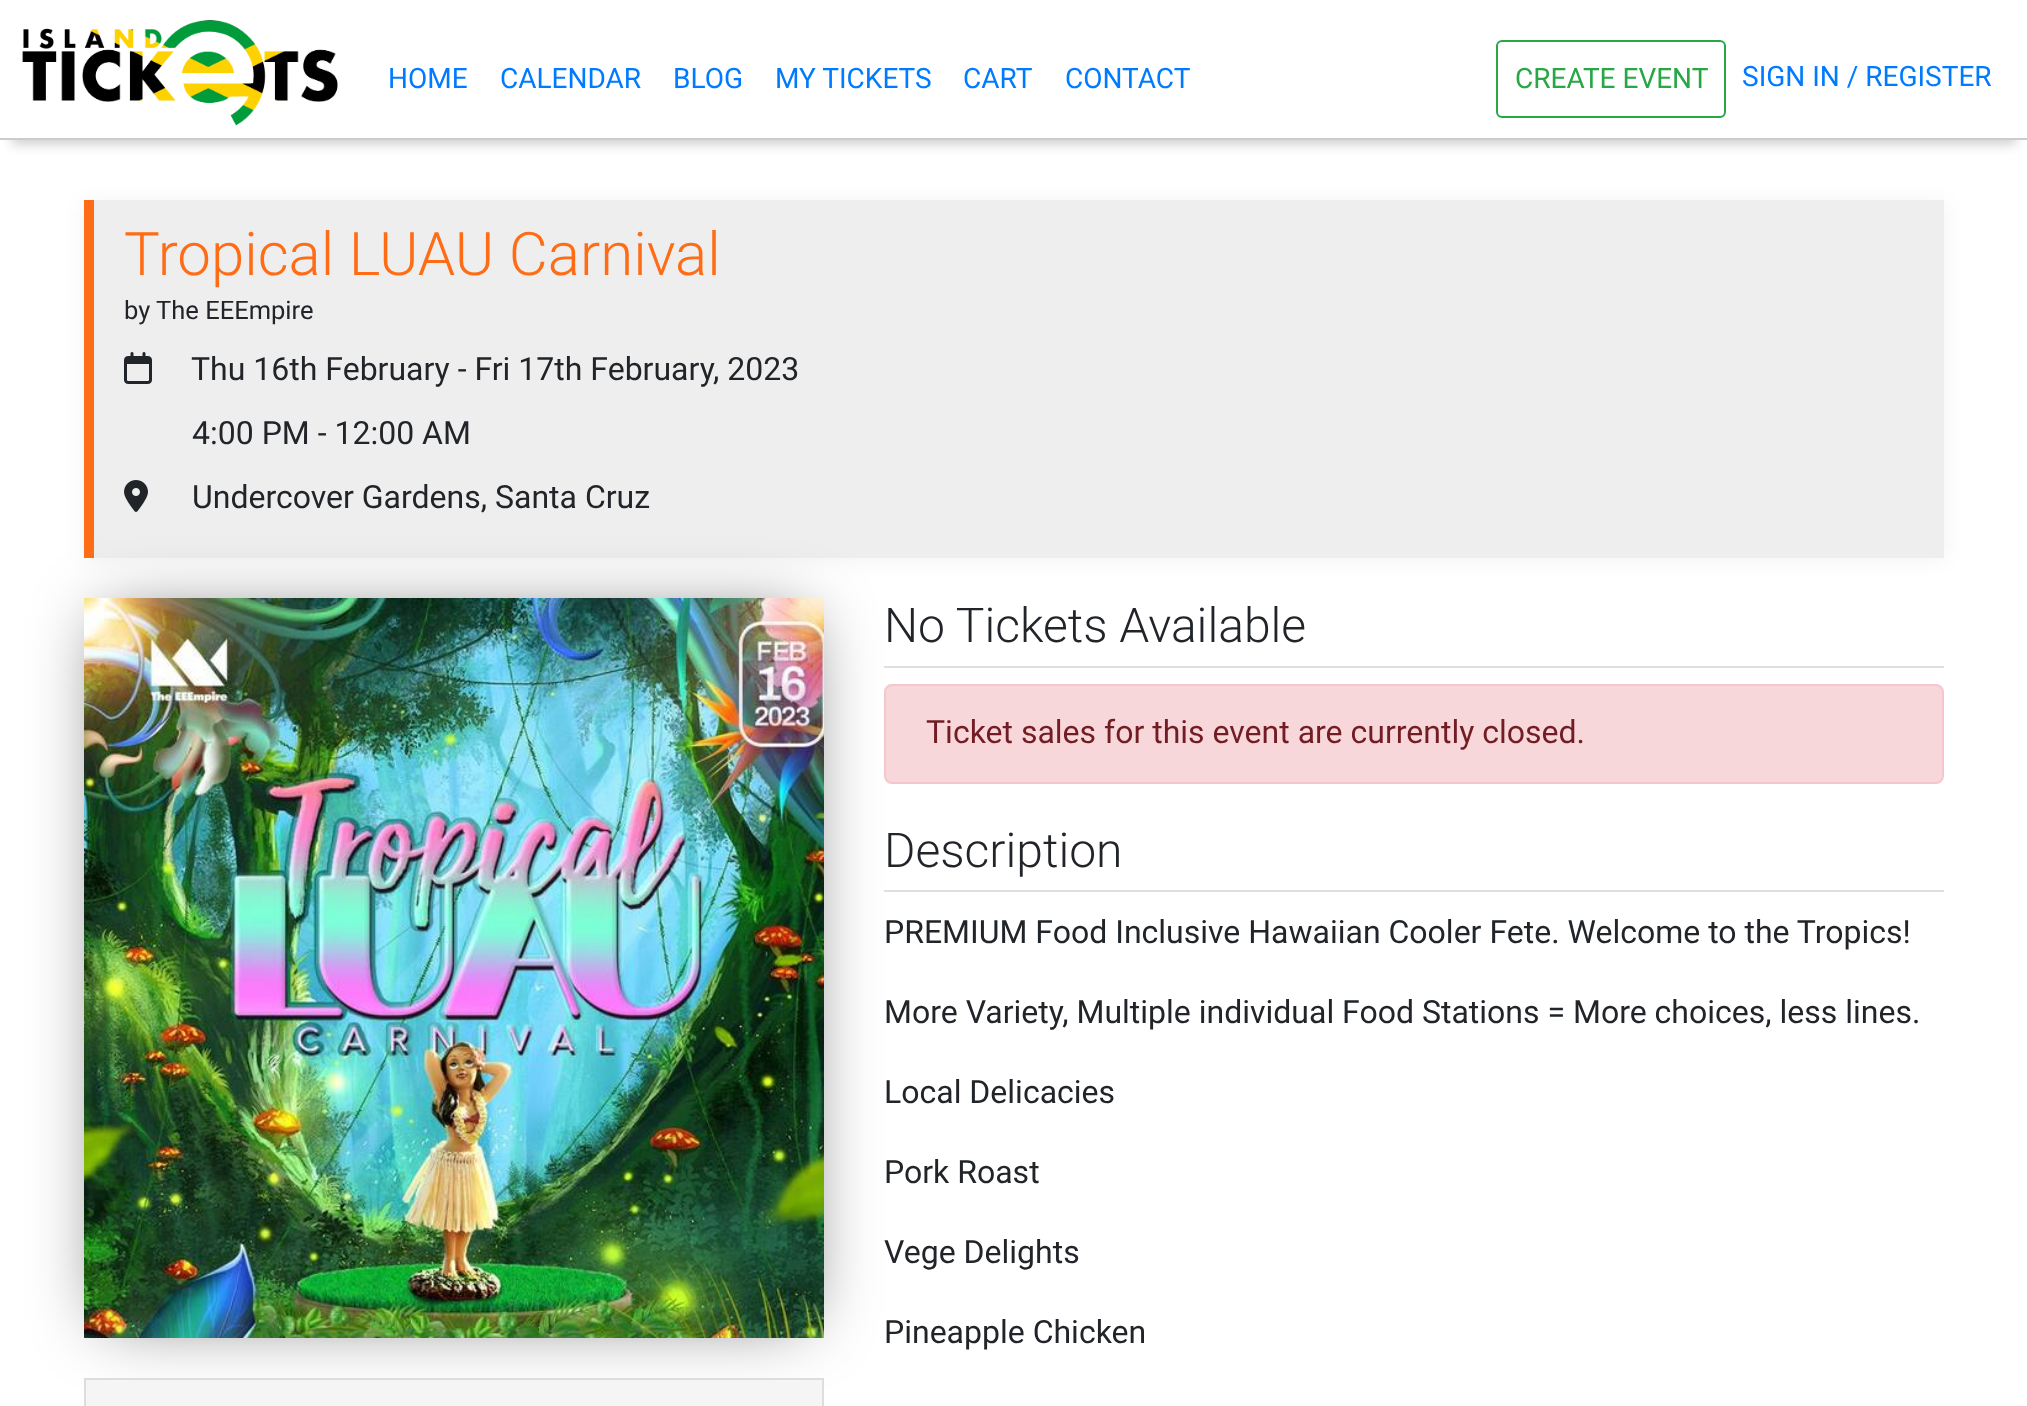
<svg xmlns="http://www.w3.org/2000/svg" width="2027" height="1406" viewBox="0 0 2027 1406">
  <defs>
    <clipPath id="clip1"><rect x="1" y="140" width="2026" height="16"/></clipPath>
    <filter id="blur1" x="-50%" y="-200%" width="200%" height="500%"><feGaussianBlur stdDeviation="6"/></filter>
    <filter id="blur2" x="-50%" y="-200%" width="200%" height="500%"><feGaussianBlur stdDeviation="10"/></filter>
    <filter id="blur3" x="-50%" y="-200%" width="200%" height="500%"><feGaussianBlur stdDeviation="35"/></filter>
  </defs>
  <rect width="100%" height="100%" fill="#ffffff"/>
  <g clip-path="url(#clip1)">
    <rect x="12" y="28" width="2004" height="116" fill="#cccccc" filter="url(#blur1)"/>
  </g>
  <rect x="0" y="138" width="2027" height="2" fill="#cccccc"/>
  <image x="22" y="20" width="316" height="106" href="img1.png"/>
  <text x="388" y="88" font-family="Roboto" font-size="28" fill="#007bff">HOME</text>
  <text x="500" y="88" font-family="Roboto" font-size="28" fill="#007bff">CALENDAR</text>
  <text x="673" y="88" font-family="Roboto" font-size="28" fill="#007bff">BLOG</text>
  <text x="775" y="88" font-family="Roboto" font-size="28" fill="#007bff">MY TICKETS</text>
  <text x="963" y="88" font-family="Roboto" font-size="28" fill="#007bff">CART</text>
  <text x="1065" y="88" font-family="Roboto" font-size="28" fill="#007bff">CONTACT</text>
  <rect x="1497" y="41" width="228" height="76" rx="5" fill="none" stroke="#28a745" stroke-width="2"/>
  <text x="1515" y="88" font-family="Roboto" font-size="28" fill="#28a745">CREATE EVENT</text>
  <text x="1742" y="86" font-family="Roboto" font-size="28" fill="#007bff">SIGN IN / REGISTER</text>
  <rect x="84" y="202" width="1860" height="358" fill="#000000" fill-opacity="0.05" filter="url(#blur2)"/>
  <rect x="94" y="200" width="1850" height="358" fill="#eeeeee"/>
  <rect x="84" y="200" width="10" height="358" fill="#fe6c16"/>
  <text x="124" y="275" font-family="Roboto" font-size="60" font-weight="300" fill="#fe6c16">Tropical LUAU Carnival</text>
  <text x="124" y="319" font-family="Roboto" font-size="25.5" fill="#212529">by The EEEmpire</text>
  <image x="124" y="352" width="28" height="32" href="img2.png"/>
  <text x="191" y="380" font-family="Roboto" font-size="32" fill="#212529">Thu 16th February - Fri 17th February, 2023</text>
  <text x="192" y="444" font-family="Roboto" font-size="32" fill="#212529">4:00 PM - 12:00 AM</text>
  <image x="124" y="480" width="24" height="32" href="img3.png"/>
  <text x="192" y="508" font-family="Roboto" font-size="32" fill="#212529">Undercover Gardens, Santa Cruz</text>
  <rect x="104" y="618" width="700" height="700" fill="#000000" fill-opacity="0.58" filter="url(#blur3)"/>
  <image x="84" y="598" width="740" height="740" href="img4.png"/>
  <rect x="85" y="1379" width="738" height="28" fill="#f5f5f5" stroke="#dddddd" stroke-width="2"/>
  <rect x="884" y="666" width="1060" height="2" fill="#e0dede"/>
  <text x="884" y="642" font-family="Roboto" font-size="48" font-weight="300" fill="#212529">No Tickets Available</text>
  <rect x="885" y="685" width="1058" height="98" rx="7" fill="#f8d7da" stroke="#f5c6cb" stroke-width="2"/>
  <text x="926" y="743" font-family="Roboto" font-size="32" fill="#721c24">Ticket sales for this event are currently closed.</text>
  <rect x="884" y="890" width="1060" height="2" fill="#e0dede"/>
  <text x="884" y="867" font-family="Roboto" font-size="48" font-weight="300" fill="#212529">Description</text>
  <text x="884" y="943" font-family="Roboto" font-size="32" fill="#212529">PREMIUM Food Inclusive Hawaiian Cooler Fete. Welcome to the Tropics!</text>
  <text x="884" y="1023" font-family="Roboto" font-size="32" fill="#212529">More Variety, Multiple individual Food Stations = More choices, less lines.</text>
  <text x="884" y="1103" font-family="Roboto" font-size="32" fill="#212529">Local Delicacies</text>
  <text x="884" y="1183" font-family="Roboto" font-size="32" fill="#212529">Pork Roast</text>
  <text x="884" y="1263" font-family="Roboto" font-size="32" fill="#212529">Vege Delights</text>
  <text x="884" y="1343" font-family="Roboto" font-size="32" fill="#212529">Pineapple Chicken</text>
</svg>
